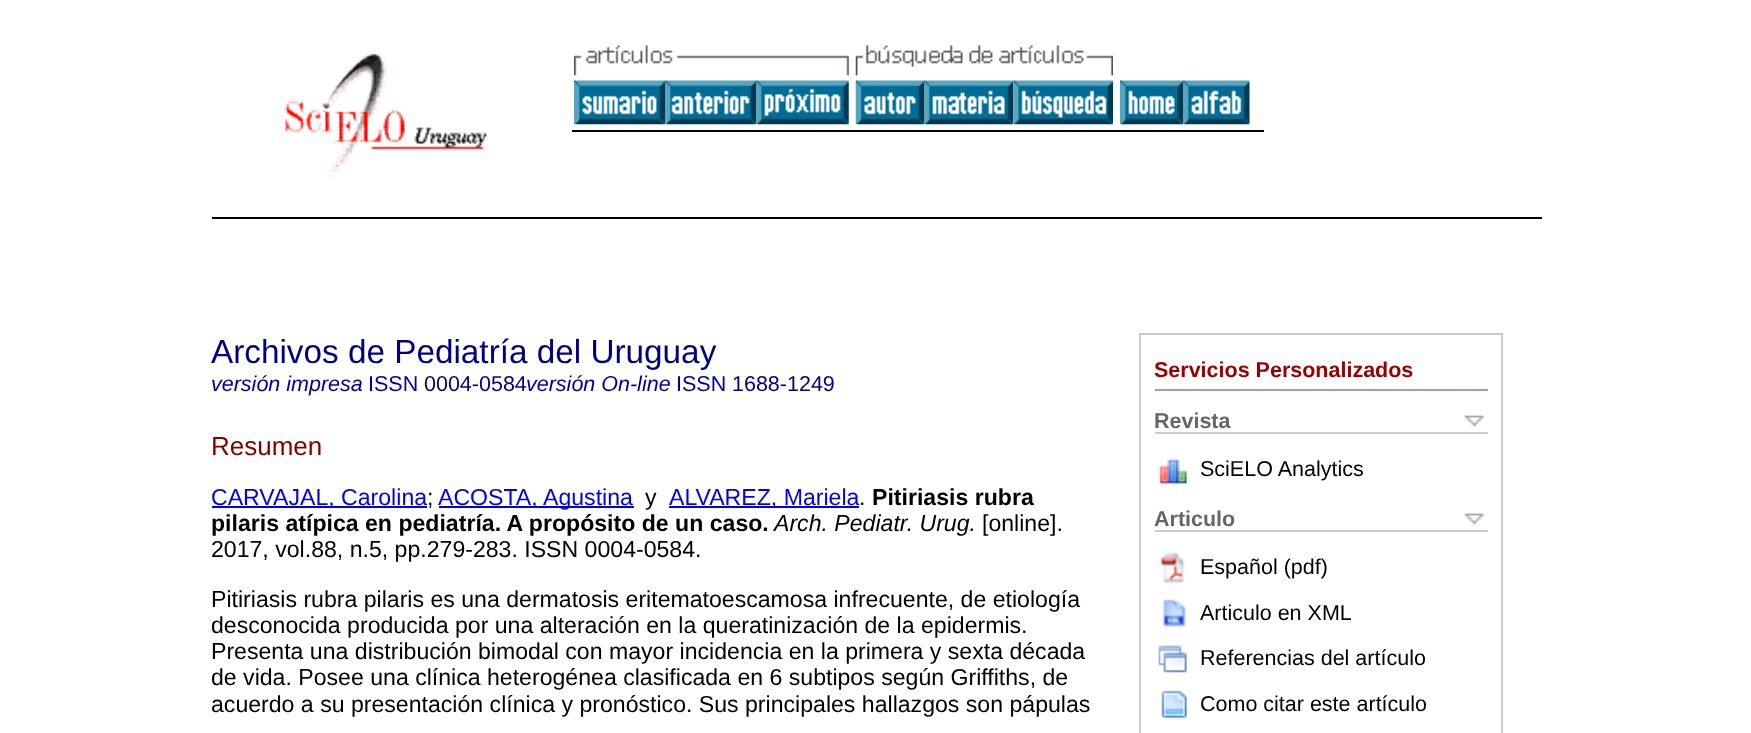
<svg xmlns="http://www.w3.org/2000/svg" width="1751" height="733" viewBox="0 0 1751 733">
  <rect width="100%" height="100%" fill="#ffffff"/>
  <rect x="212" y="217" width="1330" height="2" fill="#000000"/>
  <image x="284" y="53" width="203" height="124" href="img1.png"/>
  <rect x="572" y="130" width="692" height="2" fill="#000000"/>
  <image x="574" y="45" width="275" height="31" href="img2.png"/>
  <image x="855" y="45" width="258" height="31" href="img3.png"/>
  <image x="574" y="80" width="91" height="45" href="img4.png"/>
  <image x="665" y="80" width="91" height="45" href="img5.png"/>
  <image x="756" y="80" width="93" height="45" href="img6.png"/>
  <image x="855" y="80" width="69" height="45" href="img7.png"/>
  <image x="924" y="80" width="90" height="45" href="img8.png"/>
  <image x="1013" y="80" width="100" height="45" href="img9.png"/>
  <image x="1120" y="80" width="63" height="45" href="img10.png"/>
  <image x="1183" y="80" width="67" height="45" href="img11.png"/>
  <text x="211" y="363" font-family="Liberation Sans" font-size="33.3" fill="#000080">Archivos de Pediatría del Uruguay</text>
  <text x="211" y="391" font-family="Liberation Sans" font-size="21.5" font-style="italic" fill="#0000a0">versión impresa</text>
  <text x="368" y="391" font-family="Liberation Sans" font-size="21.5" fill="#0000a0">ISSN</text>
  <text x="424" y="391" font-family="Liberation Sans" font-size="21.5" fill="#000080">0004-0584</text>
  <text x="526" y="391" font-family="Liberation Sans" font-size="21.5" font-style="italic" fill="#0000a0">versión On-line</text>
  <text x="676" y="391" font-family="Liberation Sans" font-size="21.5" fill="#0000a0">ISSN</text>
  <text x="732" y="391" font-family="Liberation Sans" font-size="21.5" fill="#000080">1688-1249</text>
  <rect x="1140" y="334" width="362" height="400" fill="none" stroke="#cccccc" stroke-width="2"/>
  <rect x="1155" y="389" width="333" height="2" fill="#be9595"/>
  <text x="1154" y="377" font-family="Liberation Sans" font-size="21.5" font-weight="bold" fill="#990000">Servicios Personalizados</text>
  <image x="1464" y="415" width="21" height="12" href="img12.png"/>
  <rect x="1155" y="432" width="333" height="2" fill="#cccccc"/>
  <text x="1154" y="428" font-family="Liberation Sans" font-size="21.5" font-weight="bold" fill="#666666">Revista</text>
  <image x="1158" y="458" width="31" height="27" href="img13.png"/>
  <text x="1200" y="476" font-family="Liberation Sans" font-size="21.5" fill="#000000">SciELO Analytics</text>
  <image x="1464" y="513" width="21" height="12" href="img12.png"/>
  <rect x="1155" y="530" width="333" height="2" fill="#cccccc"/>
  <text x="1154" y="526" font-family="Liberation Sans" font-size="21.5" font-weight="bold" fill="#666666">Articulo</text>
  <image x="1160" y="552" width="25" height="32" href="img14.png"/>
  <text x="1200" y="574" font-family="Liberation Sans" font-size="21.5" fill="#000000">Español (pdf)</text>
  <image x="1162" y="599" width="25" height="29" href="img15.png"/>
  <text x="1200" y="620" font-family="Liberation Sans" font-size="21.5" fill="#000000">Articulo en XML</text>
  <image x="1158" y="645" width="29" height="28" href="img16.png"/>
  <text x="1200" y="665" font-family="Liberation Sans" font-size="21.5" fill="#000000">Referencias del artículo</text>
  <image x="1161" y="689" width="27" height="31" href="img17.png"/>
  <text x="1200" y="711" font-family="Liberation Sans" font-size="21.5" fill="#000000">Como citar este artículo</text>
  <text x="211" y="455" font-family="Liberation Sans" font-size="26" fill="#800000">Resumen</text>
  <rect x="212" y="506" width="215" height="2" fill="#0000ee"/>
  <text x="211" y="505" font-family="Liberation Sans" font-size="23.1" fill="#0000ee">CARVAJAL, Carolina</text>
  <text x="427" y="505" font-family="Liberation Sans" font-size="23.1" fill="#000000">;</text>
  <rect x="439" y="506" width="195" height="2" fill="#0000ee"/>
  <text x="438" y="505" font-family="Liberation Sans" font-size="23.1" fill="#0000ee">ACOSTA,</text>
  <text x="543" y="505" font-family="Liberation Sans" font-size="23.1" fill="#0000ee">Agustina</text>
  <text x="645" y="505" font-family="Liberation Sans" font-size="23.1" fill="#000000">y</text>
  <rect x="669" y="506" width="190" height="2" fill="#0000ee"/>
  <text x="669" y="505" font-family="Liberation Sans" font-size="23.1" fill="#0000ee">ALVAREZ, Mariela</text>
  <text x="859" y="505" font-family="Liberation Sans" font-size="23.1" fill="#000000">.</text>
  <text x="872" y="505" font-family="Liberation Sans" font-size="23.1" font-weight="bold" fill="#000000">Pitiriasis rubra</text>
  <text x="211" y="531" font-family="Liberation Sans" font-size="23.1" font-weight="bold" fill="#000000">pilaris atípica en pediatría. A propósito de un caso.</text>
  <text x="774" y="531" font-family="Liberation Sans" font-size="23.1" font-style="italic" fill="#000000">Arch. Pediatr. Urug.</text>
  <text x="982" y="531" font-family="Liberation Sans" font-size="23.1" fill="#000000">[online].</text>
  <text x="211" y="557" font-family="Liberation Sans" font-size="23.1" fill="#000000">2017, vol.88, n.5, pp.279-283. ISSN 0004-0584.</text>
  <text x="211" y="607" font-family="Liberation Sans" font-size="23.1" fill="#000000">Pitiriasis rubra pilaris es una dermatosis eritematoescamosa infrecuente, de etiología</text>
  <text x="211" y="633" font-family="Liberation Sans" font-size="23.1" fill="#000000">desconocida producida por una alteración en la queratinización de la epidermis.</text>
  <text x="211" y="659" font-family="Liberation Sans" font-size="23.1" fill="#000000">Presenta una distribución bimodal con mayor incidencia en la primera y sexta década</text>
  <text x="211" y="685" font-family="Liberation Sans" font-size="23.1" fill="#000000">de vida. Posee una clínica heterogénea clasificada en 6 subtipos según Griffiths, de</text>
  <text x="211" y="712" font-family="Liberation Sans" font-size="23.1" fill="#000000">acuerdo a su presentación clínica y pronóstico. Sus principales hallazgos son pápulas</text>
</svg>
